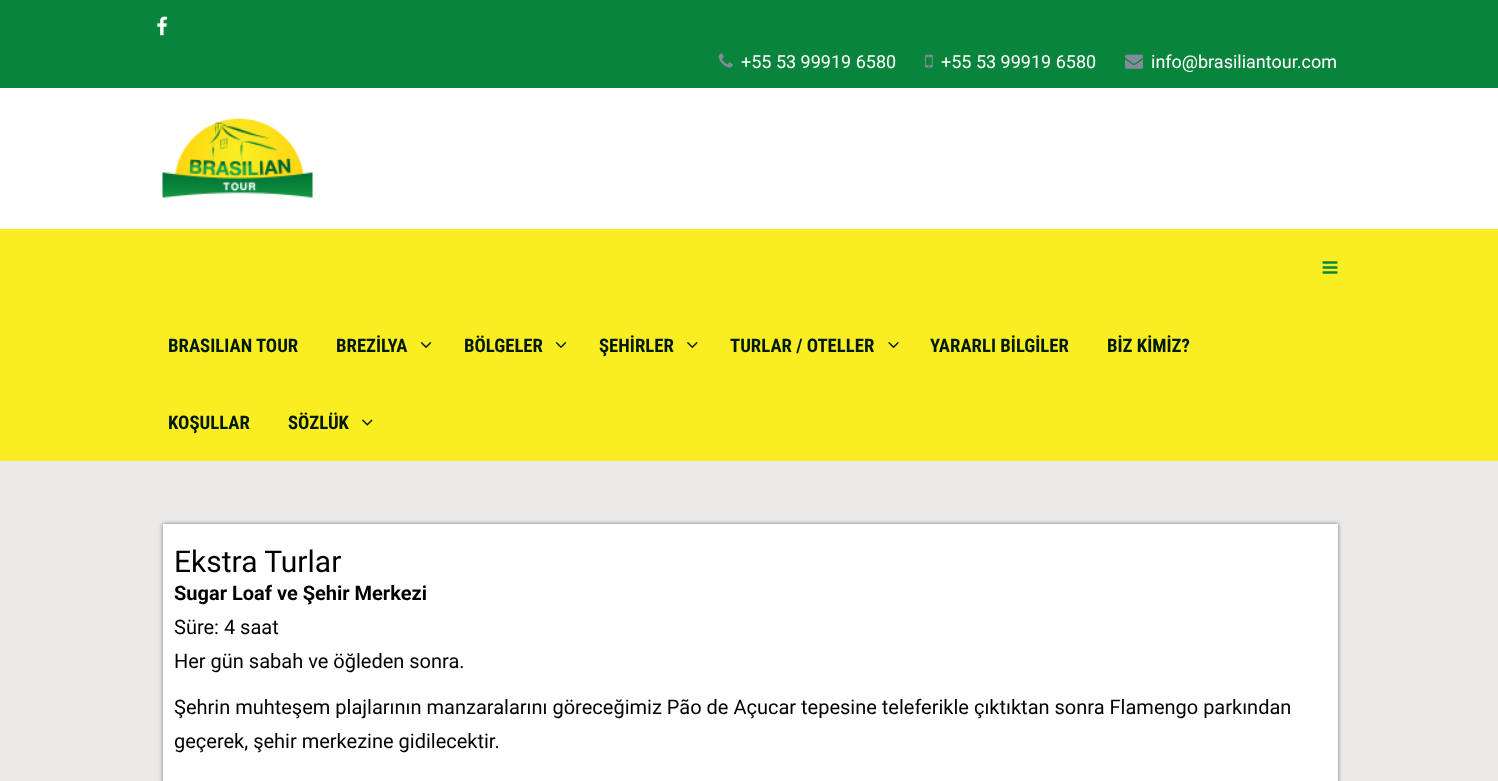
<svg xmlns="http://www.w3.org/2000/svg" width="1498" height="781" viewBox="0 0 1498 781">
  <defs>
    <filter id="blur1" x="-50%" y="-200%" width="200%" height="500%"><feGaussianBlur stdDeviation="2"/></filter>
  </defs>
  <rect width="100%" height="100%" fill="#ffffff"/>
  <rect x="0" y="0" width="1498" height="88" fill="#08843c"/>
  <image x="157" y="16" width="10" height="20" href="img1.png"/>
  <image x="718" y="53" width="15" height="15" href="img2.png"/>
  <text x="741" y="68" font-family="Roboto" font-size="18" fill="#ffffff">+55 53 99919 6580</text>
  <image x="925" y="54" width="8" height="14" href="img3.png"/>
  <text x="941" y="68" font-family="Roboto" font-size="18" fill="#ffffff">+55 53 99919 6580</text>
  <image x="1125" y="54" width="18" height="15" href="img4.png"/>
  <text x="1151" y="68" font-family="Roboto" font-size="18" fill="#ffffff">info@brasiliantour.com</text>
  <image x="162" y="118" width="151" height="80" href="img5.png"/>
  <rect x="0" y="229" width="1498" height="232" fill="#faed22"/>
  <image x="1322" y="261" width="16" height="13" href="img6.png"/>
  <text x="168" y="352" font-family="Roboto Condensed" font-size="18.75" font-weight="bold" fill="#011a0c">BRASILIAN TOUR</text>
  <text x="336" y="352" font-family="Roboto Condensed" font-size="18.75" font-weight="bold" fill="#011a0c">BREZİLYA</text>
  <image x="420" y="342" width="12" height="6" href="img7.png"/>
  <text x="464" y="352" font-family="Roboto Condensed" font-size="18.75" font-weight="bold" fill="#011a0c">BÖLGELER</text>
  <image x="555" y="342" width="12" height="6" href="img7.png"/>
  <text x="599" y="352" font-family="Roboto Condensed" font-size="18.75" font-weight="bold" fill="#011a0c">ŞEHİRLER</text>
  <image x="687" y="342" width="11" height="6" href="img8.png"/>
  <text x="730" y="352" font-family="Roboto Condensed" font-size="18.75" font-weight="bold" fill="#011a0c">TURLAR / OTELLER</text>
  <image x="888" y="342" width="11" height="6" href="img9.png"/>
  <text x="930" y="352" font-family="Roboto Condensed" font-size="18.75" font-weight="bold" fill="#011a0c">YARARLI BİLGİLER</text>
  <text x="1107" y="352" font-family="Roboto Condensed" font-size="18.75" font-weight="bold" fill="#011a0c">BİZ KİMİZ?</text>
  <text x="168" y="429" font-family="Roboto Condensed" font-size="18.75" font-weight="bold" fill="#011a0c">KOŞULLAR</text>
  <text x="288" y="429" font-family="Roboto Condensed" font-size="18.75" font-weight="bold" fill="#011a0c">SÖZLÜK</text>
  <image x="362" y="419" width="11" height="7" href="img10.png"/>
  <rect x="0" y="461" width="1498" height="320" fill="#ebeae8"/>
  <rect x="163" y="524" width="1175" height="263" fill="#000000" fill-opacity="0.5" filter="url(#blur1)"/>
  <rect x="163" y="524" width="1175" height="257" fill="#ffffff"/>
  <text x="174" y="572" font-family="Roboto" font-size="30" fill="#000000">Ekstra Turlar</text>
  <text x="174" y="600" font-family="Roboto" font-size="20" font-weight="bold" fill="#000000">Sugar Loaf ve Şehir Merkezi</text>
  <text x="174" y="634" font-family="Roboto" font-size="20" fill="#000000">Süre: 4 saat</text>
  <text x="174" y="668" font-family="Roboto" font-size="20" fill="#000000">Her gün sabah ve öğleden sonra.</text>
  <text x="174" y="714" font-family="Roboto" font-size="20" fill="#000000">Şehrin muhteşem plajlarının manzaralarını göreceğimiz Pão de Açucar tepesine teleferikle çıktıktan sonra Flamengo parkından</text>
  <text x="174" y="748" font-family="Roboto" font-size="20" fill="#000000">geçerek, şehir merkezine gidilecektir.</text>
</svg>
